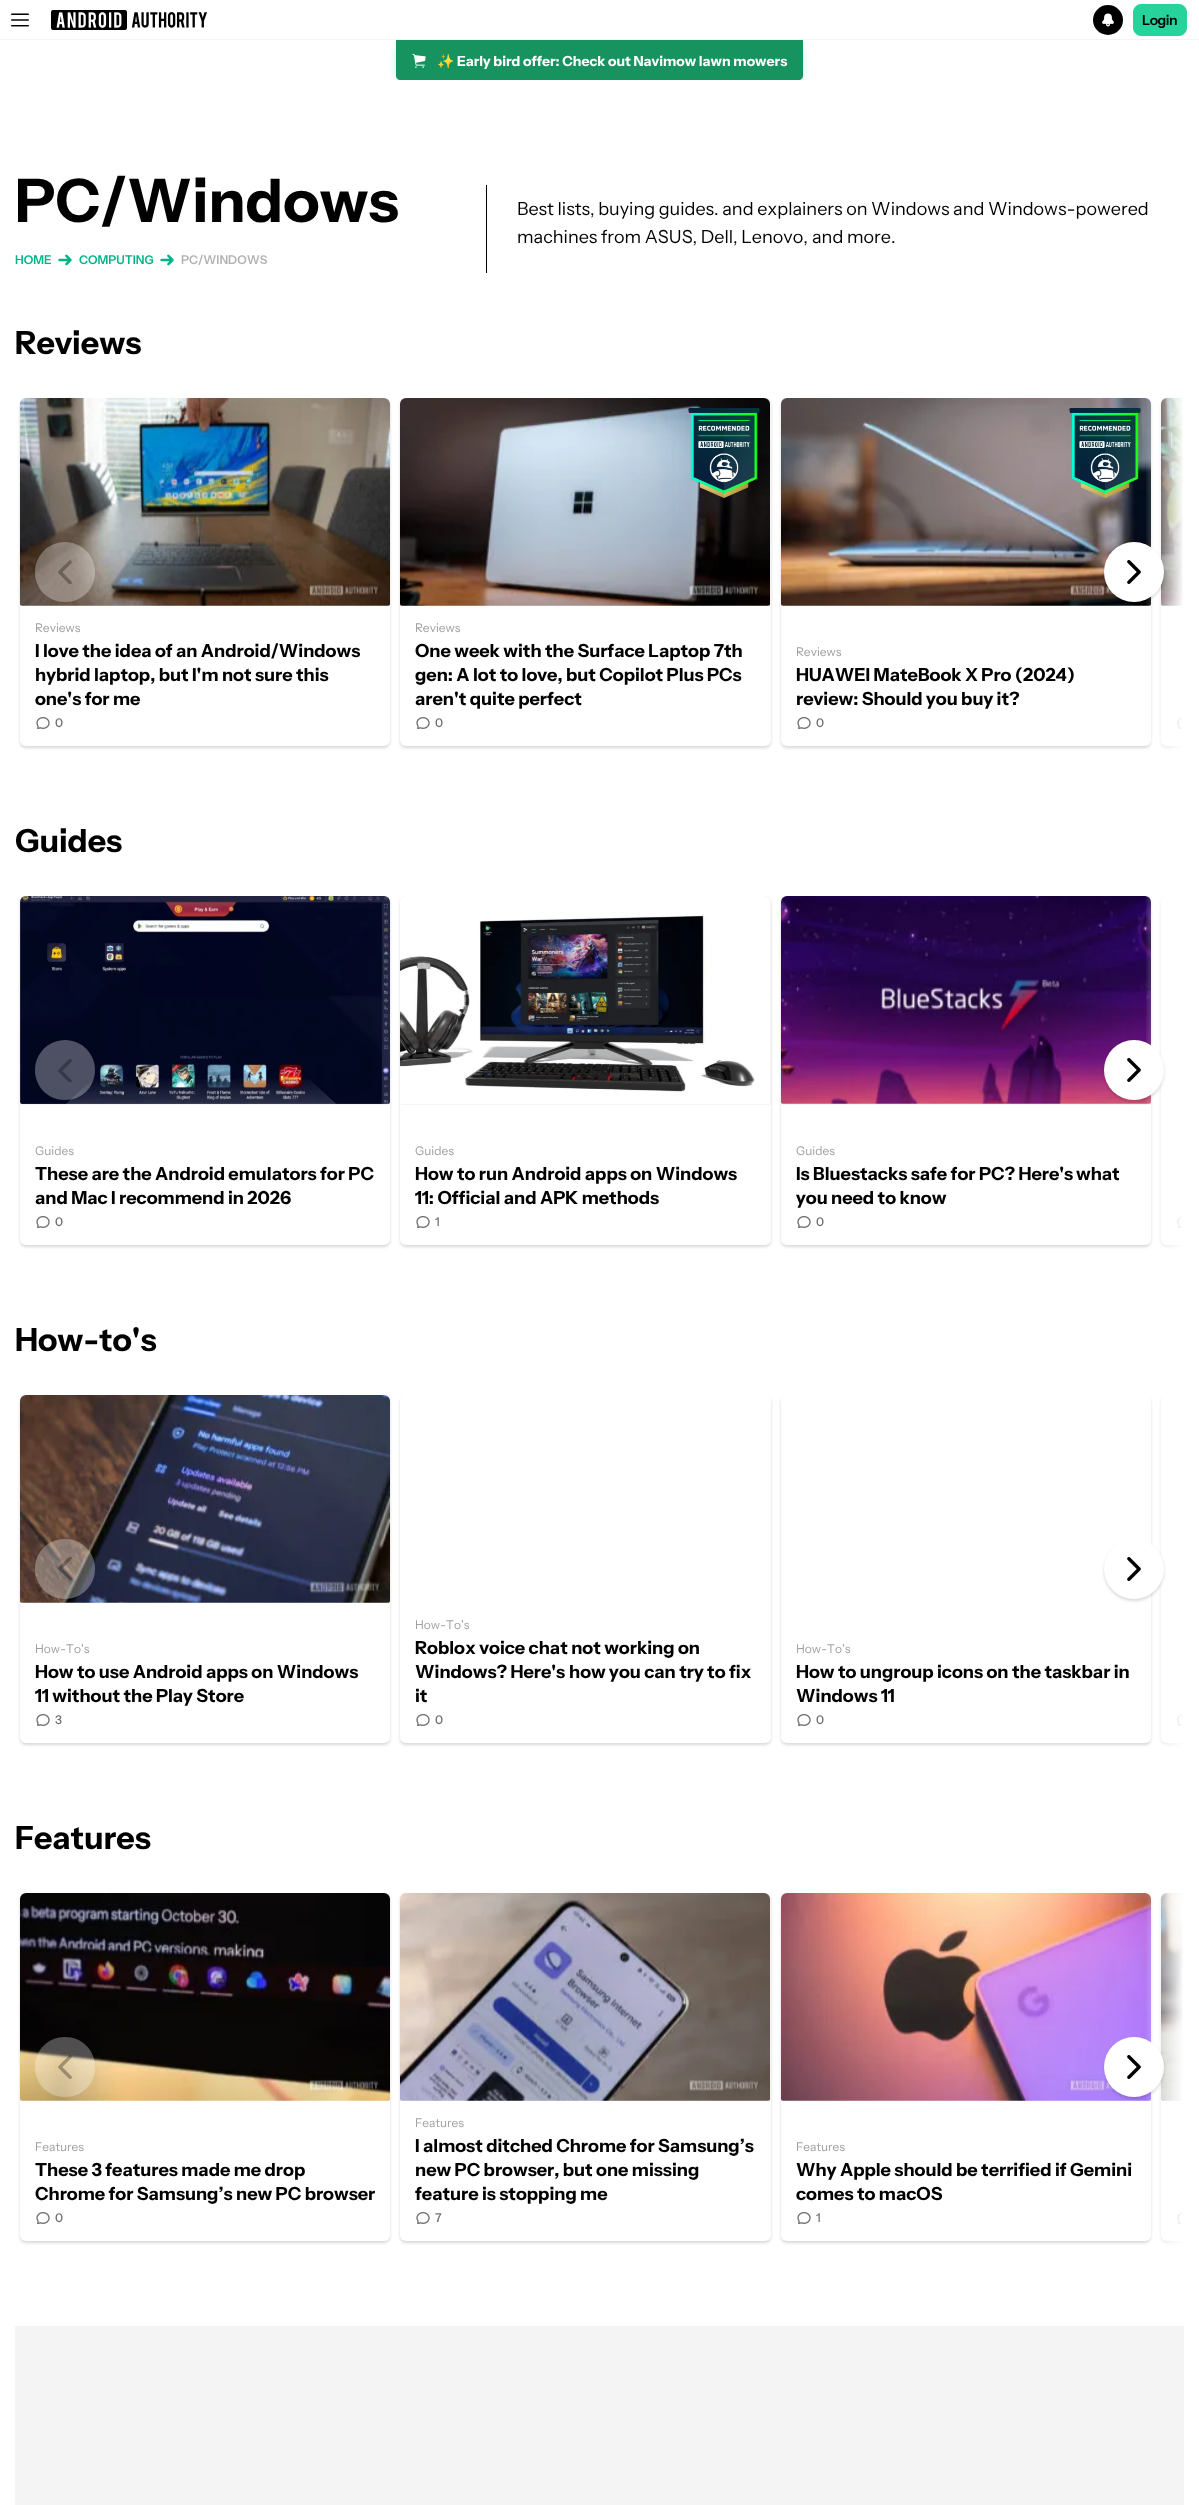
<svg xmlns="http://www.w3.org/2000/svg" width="1199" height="2505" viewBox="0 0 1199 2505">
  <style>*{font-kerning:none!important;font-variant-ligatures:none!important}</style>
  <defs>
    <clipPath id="clip1"><rect x="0" y="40" width="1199" height="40"/></clipPath>
    <filter id="blur1" x="-50%" y="-200%" width="200%" height="500%"><feGaussianBlur stdDeviation="6"/></filter>
    <filter id="blur2" x="-50%" y="-200%" width="200%" height="500%"><feGaussianBlur stdDeviation="1.5"/></filter>
    <clipPath id="clip2"><rect x="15" y="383" width="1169" height="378"/></clipPath>
    <linearGradient id="g1" gradientUnits="userSpaceOnUse" x1="1144" y1="572" x2="1184" y2="572"><stop offset="0.02" stop-color="#ffffff" stop-opacity="0"/><stop offset="0.99" stop-color="#ffffff"/></linearGradient>
    <clipPath id="clip3"><rect x="400" y="398" width="371" height="208" rx="2"/></clipPath>
    <clipPath id="clip4"><rect x="781" y="896" width="370" height="209" rx="2"/></clipPath>
    <clipPath id="clip5"><rect x="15" y="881" width="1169" height="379"/></clipPath>
    <linearGradient id="g2" gradientUnits="userSpaceOnUse" x1="1144" y1="1071" x2="1184" y2="1071"><stop offset="0.02" stop-color="#ffffff" stop-opacity="0"/><stop offset="0.99" stop-color="#ffffff"/></linearGradient>
    <clipPath id="clip6"><rect x="20" y="896" width="370" height="209" rx="2"/></clipPath>
    <clipPath id="clip7"><rect x="400" y="896" width="371" height="209" rx="2"/></clipPath>
    <clipPath id="clip8"><rect x="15" y="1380" width="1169" height="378"/></clipPath>
    <linearGradient id="g3" gradientUnits="userSpaceOnUse" x1="1144" y1="1569" x2="1184" y2="1569"><stop offset="0.02" stop-color="#ffffff" stop-opacity="0"/><stop offset="0.99" stop-color="#ffffff"/></linearGradient>
    <clipPath id="clip9"><rect x="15" y="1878" width="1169" height="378"/></clipPath>
    <linearGradient id="g4" gradientUnits="userSpaceOnUse" x1="1144" y1="2067" x2="1184" y2="2067"><stop offset="0.02" stop-color="#ffffff" stop-opacity="0"/><stop offset="0.99" stop-color="#ffffff"/></linearGradient>
    <clipPath id="clip10"><rect x="400" y="1893" width="371" height="208" rx="2"/></clipPath>
  </defs>
  <rect width="100%" height="100%" fill="#ffffff"/>
  <g clip-path="url(#clip1)">
    <rect x="400" y="48" width="399" height="32" fill="#00d49f" fill-opacity="0.5" filter="url(#blur1)"/>
  </g>
  <rect x="0" y="39" width="1199" height="1" fill="#f4f4f4"/>
  <image x="11" y="13" width="18" height="14" href="img1.png"/>
  <image x="51" y="10" width="156" height="20" href="img2.png"/>
  <circle cx="1108" cy="20" r="15" fill="#000000"/>
  <image x="1102" y="13" width="12" height="14" href="img3.png"/>
  <rect x="1133.5" y="4.5" width="53" height="31" rx="7.5" fill="#25d39b" stroke="#25d39b"/>
  <text x="1142" y="25" font-family="Instrument Sans" font-size="14" font-weight="600" letter-spacing="-0.5" fill="#000000">Login</text>
  <path d="M396 40H803V76C803 78 801 80 799 80H400C398 80 396 78 396 76Z" fill="#16935f"/>
  <image x="412" y="54" width="14" height="14" href="img4.png"/>
  <text x="437" y="66" font-family="Noto Color Emoji" font-size="14" font-weight="bold" fill="#ffffff">✨</text>
  <text x="457" y="66" font-family="Instrument Sans" font-size="14" font-weight="bold" fill="#ffffff">Early bird offer: Check out Navimow lawn mowers</text>
  <text x="15" y="222" font-family="Instrument Sans" font-size="60" font-weight="bold" fill="#000000">PC/Windows</text>
  <rect x="486" y="185" width="1" height="88" fill="#000000"/>
  <text x="517" y="215" font-family="Instrument Sans" font-size="18" fill="#000000">Best lists, buying guides. and explainers on Windows and Windows-powered</text>
  <text x="517" y="243" font-family="Instrument Sans" font-size="18" fill="#000000">machines from ASUS, Dell, Lenovo,</text>
  <text x="812" y="243" font-family="Instrument Sans" font-size="18" fill="#000000">and more.</text>
  <text x="15" y="264" font-family="Instrument Sans" font-size="12" font-weight="600" fill="#00b487">HOME</text>
  <image x="58" y="254" width="14" height="12" href="img5.png"/>
  <text x="79" y="264" font-family="Instrument Sans" font-size="12" font-weight="600" fill="#00b487">COMPUTING</text>
  <image x="160" y="254" width="14" height="12" href="img5.png"/>
  <text x="181" y="264" font-family="Instrument Sans" font-size="12" font-weight="600" fill="#b2b2b2">PC/WINDOWS</text>
  <text x="15" y="354" font-family="Instrument Sans" font-size="32" font-weight="bold" fill="#000000">Reviews</text>
  <rect x="781" y="400" width="370" height="348" rx="6" fill="#000000" fill-opacity="0.15" filter="url(#blur2)"/>
  <rect x="781" y="398" width="370" height="348" rx="6" fill="#ffffff"/>
  <image x="781" y="398" width="370" height="208" href="img12.png"/>
  <g clip-path="url(#clip2)">
    <rect x="1161" y="400" width="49" height="348" rx="6" fill="#000000" fill-opacity="0.15" filter="url(#blur2)"/>
  </g>
  <path d="M1167 398H1184V746H1167C1163.5 746 1161 743.5 1161 740V404C1161 400.5 1163.5 398 1167 398Z" fill="#ffffff"/>
  <image x="1161" y="398" width="22" height="208" href="img14.png"/>
  <image x="1177" y="717" width="6" height="12" href="img15.png"/>
  <rect x="1146" y="398" width="38" height="352" fill="url(#g1)"/>
  <rect x="20" y="400" width="370" height="348" rx="6" fill="#000000" fill-opacity="0.15" filter="url(#blur2)"/>
  <rect x="20" y="398" width="370" height="348" rx="6" fill="#ffffff"/>
  <image x="20" y="398" width="370" height="208" href="img8.png"/>
  <path d="M65 602C48 602 35 589 35 572C35 556 48 542 65 542C82 542 95 556 95 572C95 589 82 602 65 602Z" fill="#ffffff" fill-opacity="0.3"/>
  <image x="58" y="560" width="14" height="24" href="img6.png"/>
  <rect x="1104" y="544" width="60" height="60" rx="30" fill="#000000" fill-opacity="0.15" filter="url(#blur2)"/>
  <circle cx="1134" cy="572" r="30" fill="#ffffff"/>
  <image x="1127" y="560" width="14" height="24" href="img7.png"/>
  <text x="35" y="632" font-family="Instrument Sans" font-size="12" fill="#a0a0a0">Reviews</text>
  <text x="35" y="657" font-family="Instrument Sans" font-size="18" font-weight="bold" fill="#000000">I love the idea of an Android/Windows</text>
  <text x="35" y="681" font-family="Instrument Sans" font-size="18" font-weight="bold" fill="#000000">hybrid laptop, but I'm not sure this</text>
  <text x="35" y="705" font-family="Instrument Sans" font-size="18" font-weight="bold" fill="#000000">one's for me</text>
  <image x="36" y="717" width="14" height="12" href="img9.png"/>
  <text x="55" y="727" font-family="Instrument Sans" font-size="12" font-weight="500" fill="#6f6f6f">0</text>
  <rect x="400" y="400" width="371" height="348" rx="6" fill="#000000" fill-opacity="0.15" filter="url(#blur2)"/>
  <rect x="400" y="398" width="371" height="348" rx="6" fill="#ffffff"/>
  <g clip-path="url(#clip3)">
    <path d="M406 398H765C768.5 398 771 400.5 771 404V604C771 605 770 606 769 606H402C401 606 400 605 400 604V404C400 400.5 402.5 398 406 398Z" fill="#f4f4f4"/>
  </g>
  <image x="400" y="398" width="370" height="208" href="img10.png"/>
  <image x="688" y="408" width="72" height="90" href="img11.png"/>
  <text x="415" y="632" font-family="Instrument Sans" font-size="12" fill="#a0a0a0">Reviews</text>
  <text x="415" y="657" font-family="Instrument Sans" font-size="18" font-weight="bold" fill="#000000">One week with the Surface Laptop 7th</text>
  <text x="415" y="681" font-family="Instrument Sans" font-size="18" font-weight="bold" fill="#000000">gen: A lot to love, but Copilot Plus PCs</text>
  <text x="415" y="705" font-family="Instrument Sans" font-size="18" font-weight="bold" fill="#000000">aren't quite perfect</text>
  <image x="416" y="717" width="14" height="12" href="img9.png"/>
  <text x="435" y="727" font-family="Instrument Sans" font-size="12" font-weight="500" fill="#6f6f6f">0</text>
  <image x="1069" y="408" width="72" height="90" href="img13.png"/>
  <text x="796" y="656" font-family="Instrument Sans" font-size="12" fill="#a0a0a0">Reviews</text>
  <text x="796" y="681" font-family="Instrument Sans" font-size="18" font-weight="bold" fill="#000000">HUAWEI MateBook X Pro (2024)</text>
  <text x="796" y="705" font-family="Instrument Sans" font-size="18" font-weight="bold" fill="#000000">review: Should you buy it?</text>
  <image x="797" y="717" width="14" height="12" href="img9.png"/>
  <text x="816" y="727" font-family="Instrument Sans" font-size="12" font-weight="500" fill="#6f6f6f">0</text>
  <text x="15" y="852" font-family="Instrument Sans" font-size="32" font-weight="bold" fill="#000000">Guides</text>
  <rect x="781" y="898" width="370" height="349" rx="6" fill="#000000" fill-opacity="0.15" filter="url(#blur2)"/>
  <rect x="781" y="896" width="370" height="349" rx="6" fill="#ffffff"/>
  <g clip-path="url(#clip4)">
    <path d="M787 896H1145C1148.5 896 1151 898.5 1151 902V1103C1151 1104 1150 1105 1149 1105H783C782 1105 781 1104 781 1103V902C781 898.5 783.5 896 787 896Z" fill="#f4f4f4"/>
  </g>
  <image x="781" y="896" width="370" height="208" href="img19.png"/>
  <g clip-path="url(#clip5)">
    <rect x="1161" y="898" width="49" height="349" rx="6" fill="#000000" fill-opacity="0.15" filter="url(#blur2)"/>
  </g>
  <path d="M1167 896H1184V1245H1167C1163.5 1245 1161 1242.5 1161 1239V902C1161 898.5 1163.5 896 1167 896Z" fill="#ffffff"/>
  <image x="1177" y="1216" width="6" height="12" href="img15.png"/>
  <rect x="1146" y="896" width="38" height="353" fill="url(#g2)"/>
  <rect x="20" y="898" width="370" height="349" rx="6" fill="#000000" fill-opacity="0.15" filter="url(#blur2)"/>
  <rect x="20" y="896" width="370" height="349" rx="6" fill="#ffffff"/>
  <g clip-path="url(#clip6)">
    <path d="M26 896H384C387.5 896 390 898.5 390 902V1103C390 1104 389 1105 388 1105H22C21 1105 20 1104 20 1103V902C20 898.5 22.5 896 26 896Z" fill="#f4f4f4"/>
  </g>
  <image x="20" y="896" width="370" height="208" href="img17.png"/>
  <path d="M65 1100C48 1100 35 1087 35 1070C35 1054 48 1040 65 1040C82 1040 95 1054 95 1070C95 1087 82 1100 65 1100Z" fill="#ffffff" fill-opacity="0.3"/>
  <image x="58" y="1059" width="14" height="23" href="img16.png"/>
  <rect x="1104" y="1042" width="60" height="60" rx="30" fill="#000000" fill-opacity="0.15" filter="url(#blur2)"/>
  <circle cx="1134" cy="1070" r="30" fill="#ffffff"/>
  <image x="1127" y="1058" width="14" height="24" href="img7.png"/>
  <text x="35" y="1155" font-family="Instrument Sans" font-size="12" fill="#a0a0a0">Guides</text>
  <text x="35" y="1180" font-family="Instrument Sans" font-size="18" font-weight="bold" fill="#000000">These are the Android emulators for PC</text>
  <text x="35" y="1204" font-family="Instrument Sans" font-size="18" font-weight="bold" fill="#000000">and Mac I recommend in 2026</text>
  <image x="36" y="1216" width="14" height="12" href="img9.png"/>
  <text x="55" y="1226" font-family="Instrument Sans" font-size="12" font-weight="500" fill="#6f6f6f">0</text>
  <rect x="400" y="898" width="371" height="349" rx="6" fill="#000000" fill-opacity="0.15" filter="url(#blur2)"/>
  <rect x="400" y="896" width="371" height="349" rx="6" fill="#ffffff"/>
  <g clip-path="url(#clip7)">
    <path d="M406 896H765C768.5 896 771 898.5 771 902V1103C771 1104 770 1105 769 1105H402C401 1105 400 1104 400 1103V902C400 898.5 402.5 896 406 896Z" fill="#f4f4f4"/>
  </g>
  <image x="400" y="896" width="370" height="208" href="img18.png"/>
  <text x="415" y="1155" font-family="Instrument Sans" font-size="12" fill="#a0a0a0">Guides</text>
  <text x="415" y="1180" font-family="Instrument Sans" font-size="18" font-weight="bold" fill="#000000">How to run Android apps on Windows</text>
  <text x="415" y="1204" font-family="Instrument Sans" font-size="18" font-weight="bold" fill="#000000">11: Official and APK methods</text>
  <image x="416" y="1216" width="14" height="12" href="img9.png"/>
  <text x="435" y="1226" font-family="Instrument Sans" font-size="12" font-weight="500" fill="#6f6f6f">1</text>
  <text x="796" y="1155" font-family="Instrument Sans" font-size="12" fill="#a0a0a0">Guides</text>
  <text x="796" y="1180" font-family="Instrument Sans" font-size="18" font-weight="bold" fill="#000000">Is Bluestacks safe for PC? Here's</text>
  <text x="1076" y="1180" font-family="Instrument Sans" font-size="18" font-weight="bold" fill="#000000">what</text>
  <text x="796" y="1204" font-family="Instrument Sans" font-size="18" font-weight="bold" fill="#000000">you need to know</text>
  <image x="797" y="1216" width="14" height="12" href="img9.png"/>
  <text x="816" y="1226" font-family="Instrument Sans" font-size="12" font-weight="500" fill="#6f6f6f">0</text>
  <text x="15" y="1351" font-family="Instrument Sans" font-size="32" font-weight="bold" fill="#000000">How-to's</text>
  <rect x="781" y="1397" width="370" height="348" rx="6" fill="#000000" fill-opacity="0.15" filter="url(#blur2)"/>
  <rect x="781" y="1395" width="370" height="348" rx="6" fill="#ffffff"/>
  <g clip-path="url(#clip8)">
    <rect x="1161" y="1397" width="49" height="348" rx="6" fill="#000000" fill-opacity="0.15" filter="url(#blur2)"/>
  </g>
  <path d="M1167 1395H1184V1743H1167C1163.5 1743 1161 1740.5 1161 1737V1401C1161 1397.5 1163.5 1395 1167 1395Z" fill="#ffffff"/>
  <image x="1177" y="1714" width="6" height="12" href="img15.png"/>
  <rect x="1149" y="1400" width="35" height="347" fill="url(#g3)"/>
  <rect x="20" y="1397" width="370" height="348" rx="6" fill="#000000" fill-opacity="0.15" filter="url(#blur2)"/>
  <rect x="20" y="1395" width="370" height="348" rx="6" fill="#ffffff"/>
  <image x="20" y="1395" width="370" height="208" href="img21.png"/>
  <path d="M65 1599C48 1599 35 1585 35 1569C35 1552 48 1539 65 1539C82 1539 95 1552 95 1569C95 1585 82 1599 65 1599Z" fill="#ffffff" fill-opacity="0.3"/>
  <image x="58" y="1557" width="14" height="24" href="img20.png"/>
  <rect x="1104" y="1541" width="60" height="60" rx="30" fill="#000000" fill-opacity="0.15" filter="url(#blur2)"/>
  <circle cx="1134" cy="1569" r="30" fill="#ffffff"/>
  <image x="1127" y="1557" width="14" height="24" href="img7.png"/>
  <text x="35" y="1653" font-family="Instrument Sans" font-size="12" fill="#a0a0a0">How-To's</text>
  <text x="35" y="1678" font-family="Instrument Sans" font-size="18" font-weight="bold" fill="#000000">How to use Android apps on Windows</text>
  <text x="35" y="1702" font-family="Instrument Sans" font-size="18" font-weight="bold" fill="#000000">11 without the Play Store</text>
  <image x="36" y="1714" width="14" height="12" href="img9.png"/>
  <text x="55" y="1724" font-family="Instrument Sans" font-size="12" font-weight="500" fill="#6f6f6f">3</text>
  <rect x="400" y="1397" width="371" height="348" rx="6" fill="#000000" fill-opacity="0.15" filter="url(#blur2)"/>
  <rect x="400" y="1395" width="371" height="348" rx="6" fill="#ffffff"/>
  <text x="415" y="1629" font-family="Instrument Sans" font-size="12" fill="#a0a0a0">How-To's</text>
  <text x="415" y="1654" font-family="Instrument Sans" font-size="18" font-weight="bold" fill="#000000">Roblox voice chat not working</text>
  <text x="678" y="1654" font-family="Instrument Sans" font-size="18" font-weight="bold" fill="#000000">on</text>
  <text x="415" y="1678" font-family="Instrument Sans" font-size="18" font-weight="bold" fill="#000000">Windows? Here's</text>
  <text x="569" y="1678" font-family="Instrument Sans" font-size="18" font-weight="bold" fill="#000000">how you can try to fix</text>
  <text x="415" y="1702" font-family="Instrument Sans" font-size="18" font-weight="bold" fill="#000000">it</text>
  <image x="416" y="1714" width="14" height="12" href="img9.png"/>
  <text x="435" y="1724" font-family="Instrument Sans" font-size="12" font-weight="500" fill="#6f6f6f">0</text>
  <text x="796" y="1653" font-family="Instrument Sans" font-size="12" fill="#a0a0a0">How-To's</text>
  <text x="796" y="1678" font-family="Instrument Sans" font-size="18" font-weight="bold" fill="#000000">How to ungroup icons on the taskbar in</text>
  <text x="796" y="1702" font-family="Instrument Sans" font-size="18" font-weight="bold" fill="#000000">Windows 11</text>
  <image x="797" y="1714" width="14" height="12" href="img9.png"/>
  <text x="816" y="1724" font-family="Instrument Sans" font-size="12" font-weight="500" fill="#6f6f6f">0</text>
  <text x="15" y="1849" font-family="Instrument Sans" font-size="32" font-weight="bold" fill="#000000">Features</text>
  <rect x="781" y="1895" width="370" height="348" rx="6" fill="#000000" fill-opacity="0.15" filter="url(#blur2)"/>
  <rect x="781" y="1893" width="370" height="348" rx="6" fill="#ffffff"/>
  <image x="781" y="1893" width="370" height="208" href="img25.png"/>
  <g clip-path="url(#clip9)">
    <rect x="1161" y="1895" width="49" height="348" rx="6" fill="#000000" fill-opacity="0.15" filter="url(#blur2)"/>
  </g>
  <path d="M1167 1893H1184V2241H1167C1163.5 2241 1161 2238.5 1161 2235V1899C1161 1895.5 1163.5 1893 1167 1893Z" fill="#ffffff"/>
  <image x="1161" y="1893" width="22" height="208" href="img26.png"/>
  <image x="1177" y="2212" width="6" height="12" href="img15.png"/>
  <rect x="1146" y="1893" width="38" height="352" fill="url(#g4)"/>
  <rect x="20" y="1895" width="370" height="348" rx="6" fill="#000000" fill-opacity="0.15" filter="url(#blur2)"/>
  <rect x="20" y="1893" width="370" height="348" rx="6" fill="#ffffff"/>
  <image x="20" y="1893" width="370" height="208" href="img23.png"/>
  <path d="M65 2097C48 2097 35 2084 35 2067C35 2050 48 2037 65 2037C82 2037 95 2050 95 2067C95 2084 82 2097 65 2097Z" fill="#ffffff" fill-opacity="0.3"/>
  <image x="58" y="2055" width="14" height="24" href="img22.png"/>
  <rect x="1104" y="2039" width="60" height="60" rx="30" fill="#000000" fill-opacity="0.15" filter="url(#blur2)"/>
  <circle cx="1134" cy="2067" r="30" fill="#ffffff"/>
  <image x="1127" y="2055" width="14" height="24" href="img7.png"/>
  <text x="35" y="2151" font-family="Instrument Sans" font-size="12" fill="#a0a0a0">Features</text>
  <text x="35" y="2176" font-family="Instrument Sans" font-size="18" font-weight="bold" fill="#000000">These 3 features made me drop</text>
  <text x="35" y="2200" font-family="Instrument Sans" font-size="18" font-weight="bold" fill="#000000">Chrome for Samsung’s new PC browser</text>
  <image x="36" y="2212" width="14" height="12" href="img9.png"/>
  <text x="55" y="2222" font-family="Instrument Sans" font-size="12" font-weight="500" fill="#6f6f6f">0</text>
  <rect x="400" y="1895" width="371" height="348" rx="6" fill="#000000" fill-opacity="0.15" filter="url(#blur2)"/>
  <rect x="400" y="1893" width="371" height="348" rx="6" fill="#ffffff"/>
  <g clip-path="url(#clip10)">
    <path d="M406 1893H765C768.5 1893 771 1895.5 771 1899V2099C771 2100 770 2101 769 2101H402C401 2101 400 2100 400 2099V1899C400 1895.5 402.5 1893 406 1893Z" fill="#f4f4f4"/>
  </g>
  <image x="400" y="1893" width="370" height="208" href="img24.png"/>
  <text x="415" y="2127" font-family="Instrument Sans" font-size="12" fill="#a0a0a0">Features</text>
  <text x="415" y="2152" font-family="Instrument Sans" font-size="18" font-weight="bold" fill="#000000">I almost ditched Chrome for Samsung’s</text>
  <text x="415" y="2176" font-family="Instrument Sans" font-size="18" font-weight="bold" fill="#000000">new PC browser, but one missing</text>
  <text x="415" y="2200" font-family="Instrument Sans" font-size="18" font-weight="bold" fill="#000000">feature is stopping me</text>
  <image x="416" y="2212" width="14" height="12" href="img9.png"/>
  <text x="435" y="2222" font-family="Instrument Sans" font-size="12" font-weight="500" fill="#6f6f6f">7</text>
  <text x="796" y="2151" font-family="Instrument Sans" font-size="12" fill="#a0a0a0">Features</text>
  <text x="796" y="2176" font-family="Instrument Sans" font-size="18" font-weight="bold" fill="#000000">Why Apple should be terrified if Gemini</text>
  <text x="796" y="2200" font-family="Instrument Sans" font-size="18" font-weight="bold" fill="#000000">comes to macOS</text>
  <image x="797" y="2212" width="14" height="12" href="img9.png"/>
  <text x="816" y="2222" font-family="Instrument Sans" font-size="12" font-weight="500" fill="#6f6f6f">1</text>
  <rect x="15" y="2326" width="1169" height="179" fill="#f4f4f4"/>
</svg>
